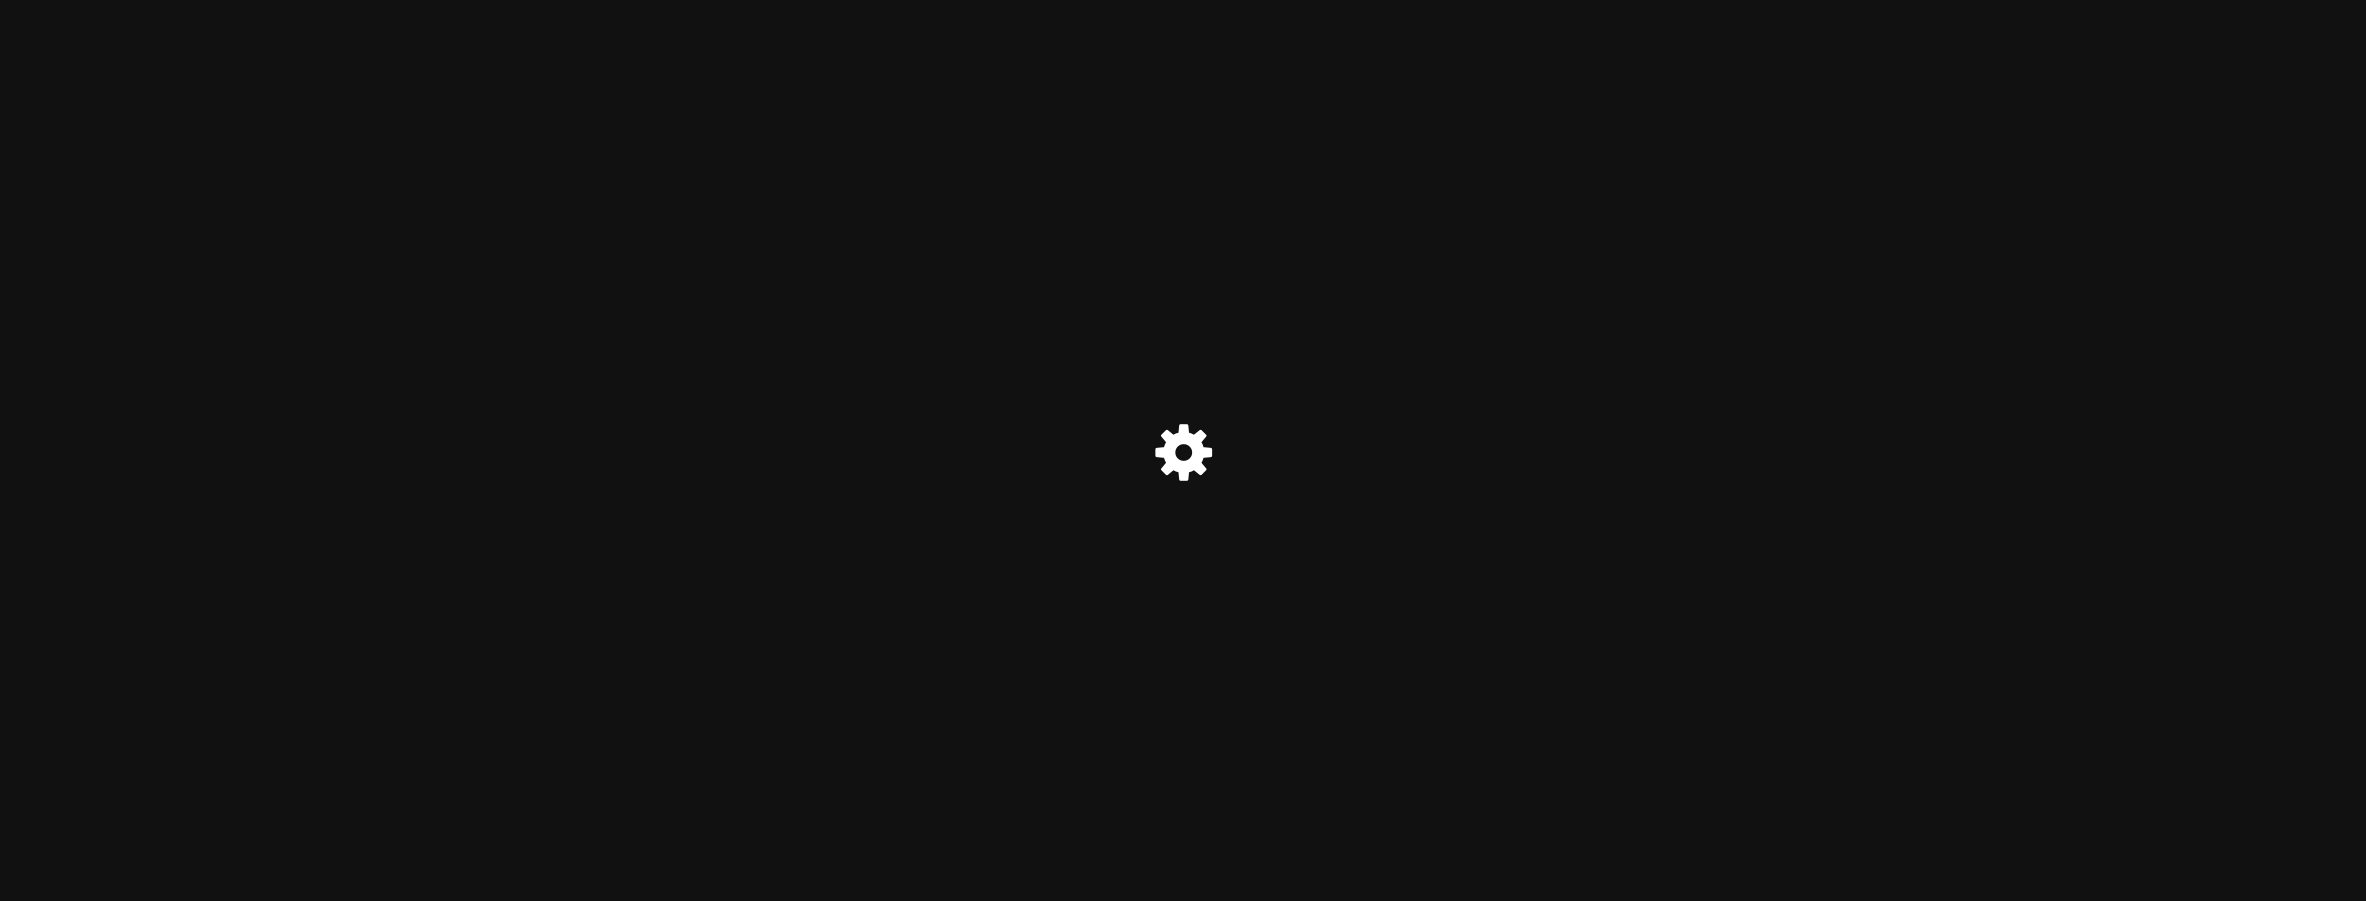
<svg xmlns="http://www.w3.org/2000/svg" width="2366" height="901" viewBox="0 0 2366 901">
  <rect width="100%" height="100%" fill="#111111"/>
  <image x="1155" y="424" width="58" height="57" href="img1.png"/>
</svg>
